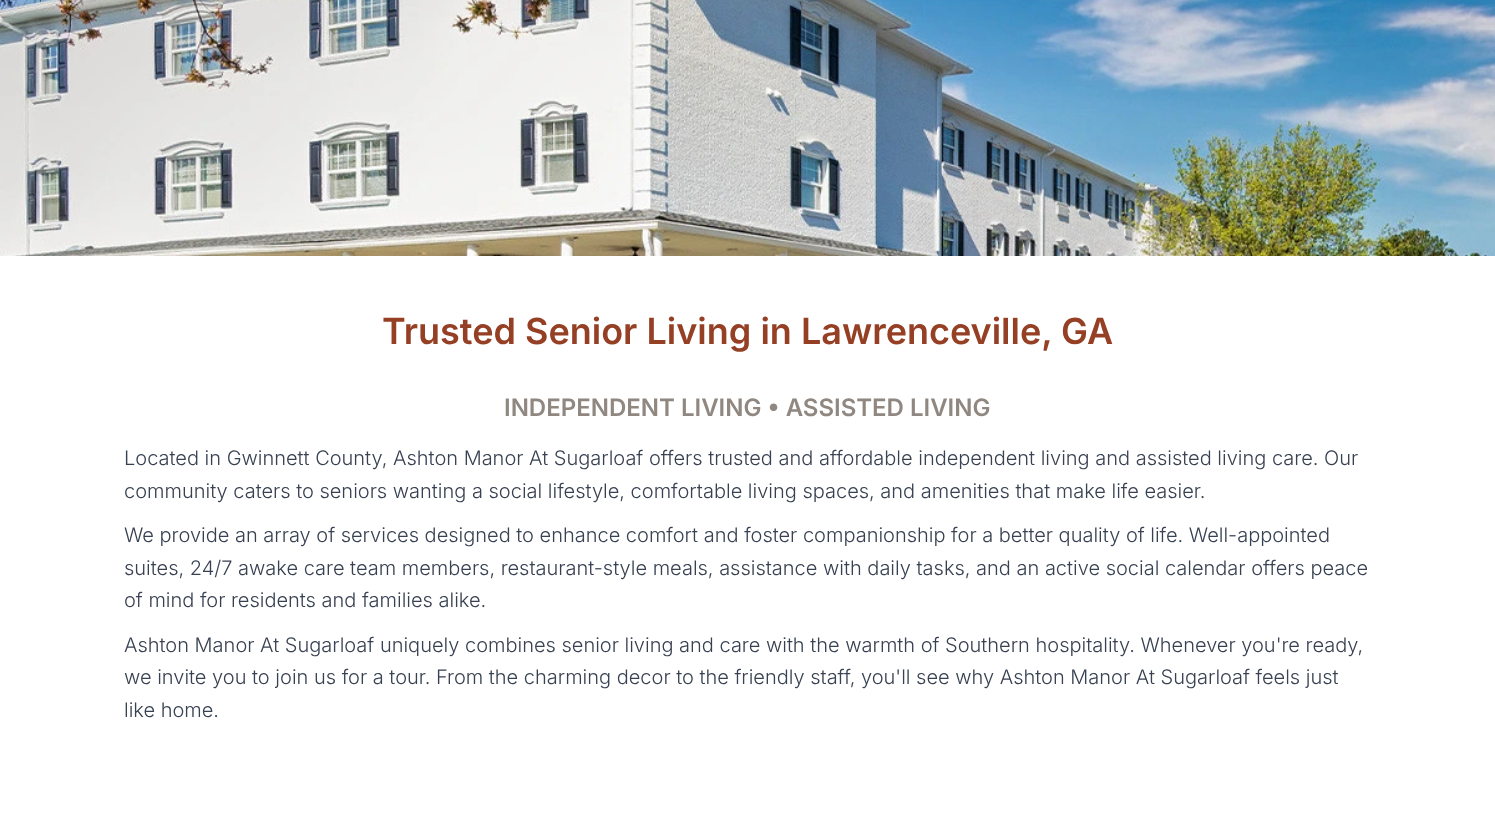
<svg xmlns="http://www.w3.org/2000/svg" width="1495" height="820" viewBox="0 0 1495 820">
  <rect width="100%" height="100%" fill="#ffffff"/>
  <image x="0" y="0" width="1495" height="256" href="img1.png"/>
  <text x="382" y="344" font-family="Inter" font-size="36" font-weight="600" fill="#953f24">Trusted Senior Living in Lawrenceville, GA</text>
  <text x="504" y="416" font-family="Inter" font-size="24" font-weight="600" fill="#908880">INDEPENDENT LIVING • ASSISTED LIVING</text>
  <text x="124" y="465" font-family="Inter" font-size="20" font-weight="300" fill="#374151">Located in Gwinnett County, Ashton Manor At Sugarloaf offers trusted and affordable independent living and assisted living care. Our</text>
  <text x="124" y="498" font-family="Inter" font-size="20" font-weight="300" fill="#374151">community caters to seniors wanting a social lifestyle, comfortable living spaces, and amenities that make life easier.</text>
  <text x="124" y="542" font-family="Inter" font-size="20" font-weight="300" fill="#374151">We provide an array of services designed to enhance comfort and foster companionship for a better quality of life. Well-appointed</text>
  <text x="124" y="575" font-family="Inter" font-size="20" font-weight="300" fill="#374151">suites, 24/7 awake care team members, restaurant-style meals, assistance with daily tasks, and an active social calendar offers peace</text>
  <text x="124" y="607" font-family="Inter" font-size="20" font-weight="300" fill="#374151">of mind for residents and families alike.</text>
  <text x="124" y="652" font-family="Inter" font-size="20" font-weight="300" fill="#374151">Ashton Manor At Sugarloaf uniquely combines senior living and care with the warmth of Southern hospitality. Whenever you're ready,</text>
  <text x="124" y="684" font-family="Inter" font-size="20" font-weight="300" fill="#374151">we invite you to join us for a tour. From the charming decor to the friendly staff, you'll see why Ashton Manor At Sugarloaf feels just</text>
  <text x="124" y="717" font-family="Inter" font-size="20" font-weight="300" fill="#374151">like home.</text>
</svg>
